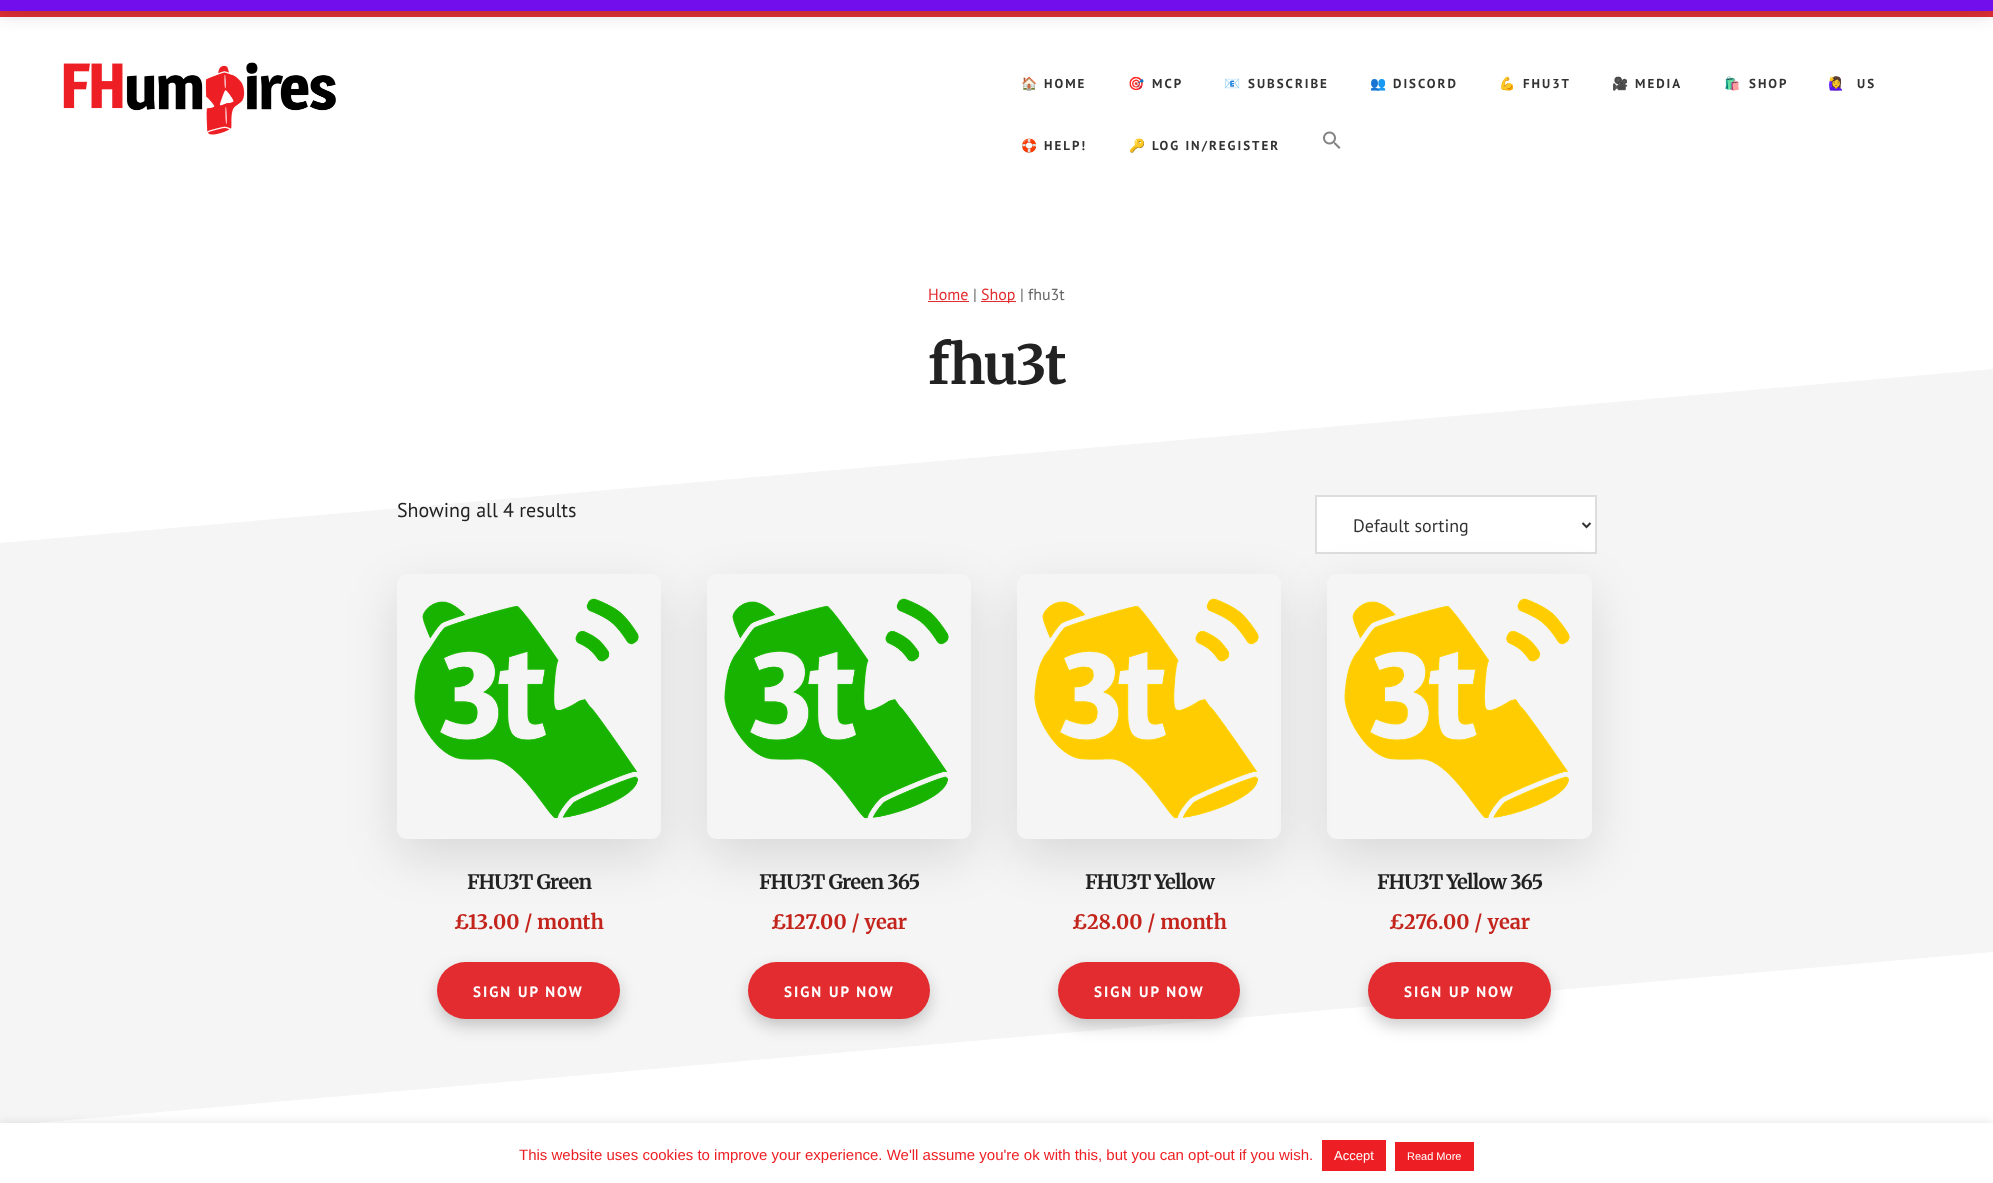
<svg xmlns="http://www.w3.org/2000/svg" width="1993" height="1183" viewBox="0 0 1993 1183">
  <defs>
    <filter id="blur1" x="-50%" y="-200%" width="200%" height="500%"><feGaussianBlur stdDeviation="10"/></filter>
    <clipPath id="clip1"><path d="M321 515H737V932H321ZM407 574H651C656.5 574 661 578.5 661 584V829C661 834.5 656.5 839 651 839H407C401.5 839 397 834.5 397 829V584C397 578.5 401.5 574 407 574Z" clip-rule="evenodd"/></clipPath>
    <filter id="blur2" x="-50%" y="-200%" width="200%" height="500%"><feGaussianBlur stdDeviation="25"/></filter>
    <filter id="blur3" x="-50%" y="-200%" width="200%" height="500%"><feGaussianBlur stdDeviation="8"/></filter>
    <clipPath id="clip2"><path d="M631 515H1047V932H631ZM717 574H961C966.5 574 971 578.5 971 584V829C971 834.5 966.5 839 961 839H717C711.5 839 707 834.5 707 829V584C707 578.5 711.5 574 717 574Z" clip-rule="evenodd"/></clipPath>
    <clipPath id="clip3"><path d="M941 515H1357V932H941ZM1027 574H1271C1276.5 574 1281 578.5 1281 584V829C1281 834.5 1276.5 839 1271 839H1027C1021.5 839 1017 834.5 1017 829V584C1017 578.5 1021.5 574 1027 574Z" clip-rule="evenodd"/></clipPath>
    <clipPath id="clip4"><path d="M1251 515H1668V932H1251ZM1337 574H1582C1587.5 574 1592 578.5 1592 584V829C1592 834.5 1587.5 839 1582 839H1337C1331.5 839 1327 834.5 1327 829V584C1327 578.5 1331.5 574 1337 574Z" clip-rule="evenodd"/></clipPath>
    <filter id="blur4" x="-50%" y="-200%" width="200%" height="500%"><feGaussianBlur stdDeviation="5"/></filter>
  </defs>
  <rect width="100%" height="100%" fill="#ffffff"/>
  <rect x="0" y="11" width="1993" height="6" fill="#e02f36"/>
  <rect x="0" y="-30" width="1993" height="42" fill="#000000" fill-opacity="0.2" filter="url(#blur1)"/>
  <rect x="0" y="0" width="1993" height="11" fill="#720eec"/>
  <image x="63" y="62" width="273" height="73" href="img1.png"/>
  <text x="1021" y="88" font-family="Noto Color Emoji" font-size="13" font-weight="bold" letter-spacing="2" fill="#333333">🏠</text>
  <text x="1044" y="88" font-family="PT Sans" font-size="13" font-weight="bold" letter-spacing="2" fill="#333333">HOME</text>
  <text x="1128" y="88" font-family="Noto Color Emoji" font-size="13" font-weight="bold" letter-spacing="2" fill="#333333">🎯</text>
  <text x="1152" y="88" font-family="PT Sans" font-size="13" font-weight="bold" letter-spacing="2" fill="#333333">MCP</text>
  <text x="1224" y="88" font-family="Noto Color Emoji" font-size="13" font-weight="bold" letter-spacing="2" fill="#333333">📧</text>
  <text x="1248" y="88" font-family="PT Sans" font-size="13" font-weight="bold" letter-spacing="2" fill="#333333">SUBSCRIBE</text>
  <text x="1370" y="88" font-family="Noto Color Emoji" font-size="13" font-weight="bold" letter-spacing="2" fill="#333333">👥</text>
  <text x="1393" y="88" font-family="PT Sans" font-size="13" font-weight="bold" letter-spacing="2" fill="#333333">DISCORD</text>
  <text x="1499" y="88" font-family="Noto Color Emoji" font-size="13" font-weight="bold" letter-spacing="2" fill="#333333">💪</text>
  <text x="1523" y="88" font-family="PT Sans" font-size="13" font-weight="bold" letter-spacing="2" fill="#333333">FHU3T</text>
  <text x="1612" y="88" font-family="Noto Color Emoji" font-size="13" font-weight="bold" letter-spacing="2" fill="#333333">🎥</text>
  <text x="1635" y="88" font-family="PT Sans" font-size="13" font-weight="bold" letter-spacing="2" fill="#333333">MEDIA</text>
  <text x="1724" y="88" font-family="Noto Color Emoji" font-size="13" font-weight="bold" letter-spacing="2" fill="#333333">🛍️</text>
  <text x="1749" y="88" font-family="PT Sans" font-size="13" font-weight="bold" letter-spacing="2" fill="#333333">SHOP</text>
  <text x="1828" y="88" font-family="Noto Color Emoji" font-size="13" font-weight="bold" letter-spacing="2" fill="#333333">🙋‍♀️</text>
  <text x="1857" y="88" font-family="PT Sans" font-size="13" font-weight="bold" letter-spacing="2" fill="#333333">US</text>
  <text x="1021" y="150" font-family="Noto Color Emoji" font-size="13" font-weight="bold" letter-spacing="2" fill="#333333">🛟</text>
  <text x="1044" y="150" font-family="PT Sans" font-size="13" font-weight="bold" letter-spacing="2" fill="#333333">HELP!</text>
  <text x="1129" y="150" font-family="Noto Color Emoji" font-size="13" font-weight="bold" letter-spacing="2" fill="#333333">🔑</text>
  <text x="1152" y="150" font-family="PT Sans" font-size="13" font-weight="bold" letter-spacing="2" fill="#333333">LOG IN/REGISTER</text>
  <image x="1323" y="131" width="18" height="18" href="img2.png"/>
  <text x="928" y="300" font-family="PT Sans" font-size="16" fill="#e22c2f">Home</text>
  <rect x="928" y="301" width="41" height="1" fill="#e22c2f"/>
  <text x="973" y="300" font-family="PT Sans" font-size="16" fill="#666666">|</text>
  <rect x="981" y="301" width="35" height="1" fill="#e22c2f"/>
  <text x="981" y="300" font-family="PT Sans" font-size="16" fill="#e22c2f">Shop</text>
  <text x="1020" y="300" font-family="PT Sans" font-size="16" fill="#666666">| fhu3t</text>
  <path d="M0 543L1993 369V770L0 944Z" fill="#f5f5f5"/>
  <text x="928" y="384" font-family="Merriweather" font-size="54" font-weight="bold" letter-spacing="-1.5" fill="#222222">fhu3t</text>
  <text x="397" y="517" font-family="PT Sans" font-size="20" fill="#222222">Showing all 4 results</text>
  <path d="M0 724L1993 550V952L0 1126Z" fill="#f5f5f5"/>
  <rect x="1316" y="496" width="280" height="57" fill="#ffffff" stroke="#dddddd" stroke-width="2"/>
  <path d="M1582.5 523L1586.5 527L1590.5 523" fill="none" stroke="#333333" stroke-width="2"/>
  <text x="1353" y="532" font-family="PT Sans" font-size="18" fill="#333333">Default sorting</text>
  <g clip-path="url(#clip1)">
    <rect x="397" y="591" width="264" height="265" rx="10" fill="#000000" fill-opacity="0.12" filter="url(#blur2)"/>
  </g>
  <image x="414" y="598" width="225" height="221" href="img3.png"/>
  <text x="467" y="889" font-family="Merriweather" font-size="20" font-weight="bold" letter-spacing="-0.75" fill="#222222">FHU3T Green</text>
  <text x="454" y="929" font-family="Merriweather" font-size="20" font-weight="bold" fill="#c3251d">£</text>
  <text x="468" y="929" font-family="Merriweather" font-size="20" font-weight="bold" fill="#c3251d">13.00 / month</text>
  <rect x="437" y="969" width="183" height="57" rx="28.5" fill="#000000" fill-opacity="0.2" filter="url(#blur3)"/>
  <rect x="437" y="962" width="183" height="57" rx="28.5" fill="#e22c2f"/>
  <text x="473" y="997" font-family="PT Sans" font-size="15" font-weight="bold" letter-spacing="2" fill="#ffffff">SIGN UP NOW</text>
  <g clip-path="url(#clip2)">
    <rect x="707" y="591" width="264" height="265" rx="10" fill="#000000" fill-opacity="0.12" filter="url(#blur2)"/>
  </g>
  <image x="724" y="598" width="225" height="221" href="img4.png"/>
  <text x="759" y="889" font-family="Merriweather" font-size="20" font-weight="bold" letter-spacing="-0.75" fill="#222222">FHU3T Green 365</text>
  <text x="771" y="929" font-family="Merriweather" font-size="20" font-weight="bold" fill="#c3251d">£</text>
  <text x="785" y="929" font-family="Merriweather" font-size="20" font-weight="bold" fill="#c3251d">127.00 / year</text>
  <rect x="748" y="969" width="182" height="57" rx="28.5" fill="#000000" fill-opacity="0.2" filter="url(#blur3)"/>
  <rect x="748" y="962" width="182" height="57" rx="28.5" fill="#e22c2f"/>
  <text x="784" y="997" font-family="PT Sans" font-size="15" font-weight="bold" letter-spacing="2" fill="#ffffff">SIGN UP NOW</text>
  <g clip-path="url(#clip3)">
    <rect x="1017" y="591" width="264" height="265" rx="10" fill="#000000" fill-opacity="0.12" filter="url(#blur2)"/>
  </g>
  <image x="1034" y="598" width="225" height="221" href="img5.png"/>
  <text x="1085" y="889" font-family="Merriweather" font-size="20" font-weight="bold" letter-spacing="-0.75" fill="#222222">FHU3T Yellow</text>
  <text x="1072" y="929" font-family="Merriweather" font-size="20" font-weight="bold" fill="#c3251d">£</text>
  <text x="1087" y="929" font-family="Merriweather" font-size="20" font-weight="bold" fill="#c3251d">28.00 / month</text>
  <rect x="1058" y="969" width="182" height="57" rx="28.5" fill="#000000" fill-opacity="0.2" filter="url(#blur3)"/>
  <rect x="1058" y="962" width="182" height="57" rx="28.5" fill="#e22c2f"/>
  <text x="1094" y="997" font-family="PT Sans" font-size="15" font-weight="bold" letter-spacing="2" fill="#ffffff">SIGN UP NOW</text>
  <g clip-path="url(#clip4)">
    <rect x="1327" y="591" width="265" height="265" rx="10" fill="#000000" fill-opacity="0.12" filter="url(#blur2)"/>
  </g>
  <image x="1344" y="598" width="226" height="221" href="img6.png"/>
  <text x="1377" y="889" font-family="Merriweather" font-size="20" font-weight="bold" letter-spacing="-0.75" fill="#222222">FHU3T Yellow 365</text>
  <text x="1389" y="929" font-family="Merriweather" font-size="20" font-weight="bold" fill="#c3251d">£</text>
  <text x="1404" y="929" font-family="Merriweather" font-size="20" font-weight="bold" fill="#c3251d">276.00 / year</text>
  <rect x="1368" y="969" width="183" height="57" rx="28.5" fill="#000000" fill-opacity="0.2" filter="url(#blur3)"/>
  <rect x="1368" y="962" width="183" height="57" rx="28.5" fill="#e22c2f"/>
  <text x="1404" y="997" font-family="PT Sans" font-size="15" font-weight="bold" letter-spacing="2" fill="#ffffff">SIGN UP NOW</text>
  <rect x="0" y="1122" width="1993" height="60" fill="#acabab" fill-opacity="0.3" filter="url(#blur4)"/>
  <rect x="0" y="1123" width="1993" height="60" fill="#ffffff"/>
  <text x="519" y="1160" font-family="Liberation Sans" font-size="15" fill="#ed1f24">This website uses cookies to improve your experience. We'll assume you're ok with this, but you can opt-out if you wish.</text>
  <rect x="1322" y="1140" width="64" height="31" fill="#ed1f24"/>
  <text x="1334" y="1160" font-family="Liberation Sans" font-size="13" fill="#ffffff">Accept</text>
  <rect x="1395" y="1142" width="79" height="29" fill="#ed1f24"/>
  <text x="1407" y="1160" font-family="Liberation Sans" font-size="11" fill="#ffffff">Read More</text>
</svg>
